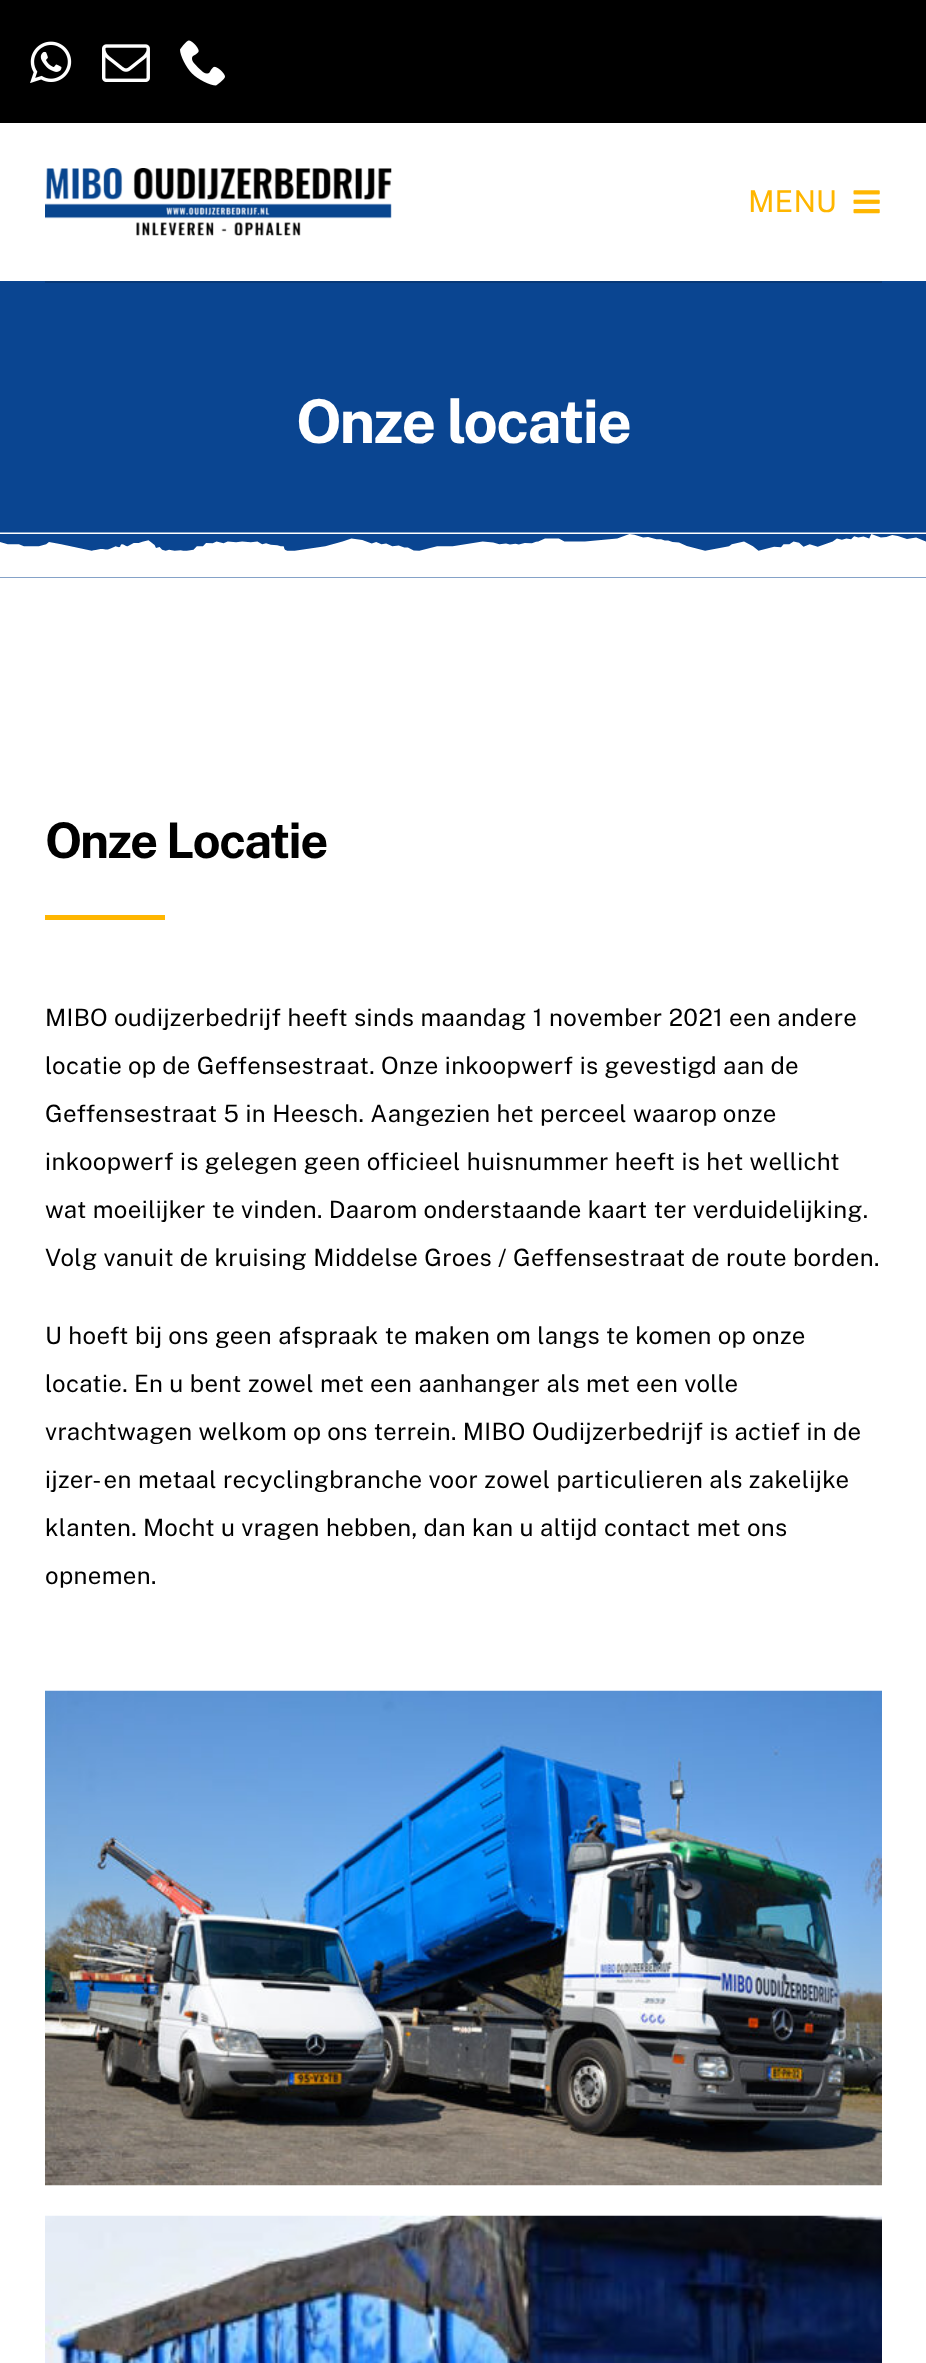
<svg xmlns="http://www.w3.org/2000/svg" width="926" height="2363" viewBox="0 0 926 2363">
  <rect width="100%" height="100%" fill="#ffffff"/>
  <rect x="0" y="0" width="926" height="123" fill="#000000"/>
  <image x="30" y="41" width="42" height="42" href="img1.png"/>
  <image x="102" y="44" width="48" height="38" href="img2.png"/>
  <image x="180" y="40" width="45" height="46" href="img3.png"/>
  <image x="45" y="168" width="347" height="68" href="img4.png"/>
  <text x="748" y="212" font-family="Public Sans" font-size="30" fill="#ffb600">MENU</text>
  <image x="853" y="190" width="27" height="24" href="img5.png"/>
  <rect x="0" y="281" width="926" height="297" fill="#0a4591"/>
  <rect x="45" y="281" width="837" height="2" fill="#083978"/>
  <text x="296" y="443" font-family="Public Sans" font-size="60.25" font-weight="bold" letter-spacing="-1.5" fill="#ffffff">Onze locatie</text>
  <image x="0" y="532" width="926" height="46" href="img6.png"/>
  <text x="45" y="858" font-family="Public Sans" font-size="49" font-weight="bold" letter-spacing="-1.5" fill="#000000">Onze Locatie</text>
  <rect x="45" y="915" width="120" height="5" fill="#ffb600"/>
  <text x="45" y="1026" font-family="Public Sans" font-size="24" letter-spacing="0.35" fill="#000000">MIBO oudijzerbedrijf heeft sinds maandag 1 november 2021 een andere</text>
  <text x="45" y="1074" font-family="Public Sans" font-size="24" letter-spacing="0.35" fill="#000000">locatie op de Geffensestraat. Onze inkoopwerf is gevestigd aan de</text>
  <text x="45" y="1122" font-family="Public Sans" font-size="24" letter-spacing="0.35" fill="#000000">Geffensestraat 5 in Heesch. Aangezien het perceel waarop onze</text>
  <text x="45" y="1170" font-family="Public Sans" font-size="24" letter-spacing="0.35" fill="#000000">inkoopwerf is gelegen geen officieel huisnummer heeft is het wellicht</text>
  <text x="45" y="1218" font-family="Public Sans" font-size="24" letter-spacing="0.35" fill="#000000">wat moeilijker te vinden. Daarom onderstaande kaart ter verduidelijking.</text>
  <text x="45" y="1266" font-family="Public Sans" font-size="24" letter-spacing="0.35" fill="#000000">Volg vanuit de kruising Middelse Groes / Geffensestraat de route borden.</text>
  <text x="45" y="1344" font-family="Public Sans" font-size="24" letter-spacing="0.35" fill="#000000">U hoeft bij ons geen afspraak te maken om langs te komen op onze</text>
  <text x="45" y="1392" font-family="Public Sans" font-size="24" letter-spacing="0.35" fill="#000000">locatie. En u bent zowel met een aanhanger als met een volle</text>
  <text x="45" y="1440" font-family="Public Sans" font-size="24" letter-spacing="0.35" fill="#000000">vrachtwagen welkom op ons terrein. MIBO Oudijzerbedrijf is actief in de</text>
  <text x="45" y="1488" font-family="Public Sans" font-size="24" letter-spacing="0.35" fill="#000000">ijzer- en metaal recyclingbranche voor zowel particulieren als zakelijke</text>
  <text x="45" y="1536" font-family="Public Sans" font-size="24" letter-spacing="0.35" fill="#000000">klanten. Mocht u vragen hebben, dan kan u altijd</text>
  <text x="604" y="1536" font-family="Public Sans" font-size="24" letter-spacing="0.35" fill="#000000">contact met ons</text>
  <text x="45" y="1584" font-family="Public Sans" font-size="24" letter-spacing="0.35" fill="#000000">opnemen.</text>
  <image x="45" y="1690" width="837" height="496" href="img7.png"/>
  <image x="45" y="2215" width="837" height="148" href="img8.png"/>
</svg>
